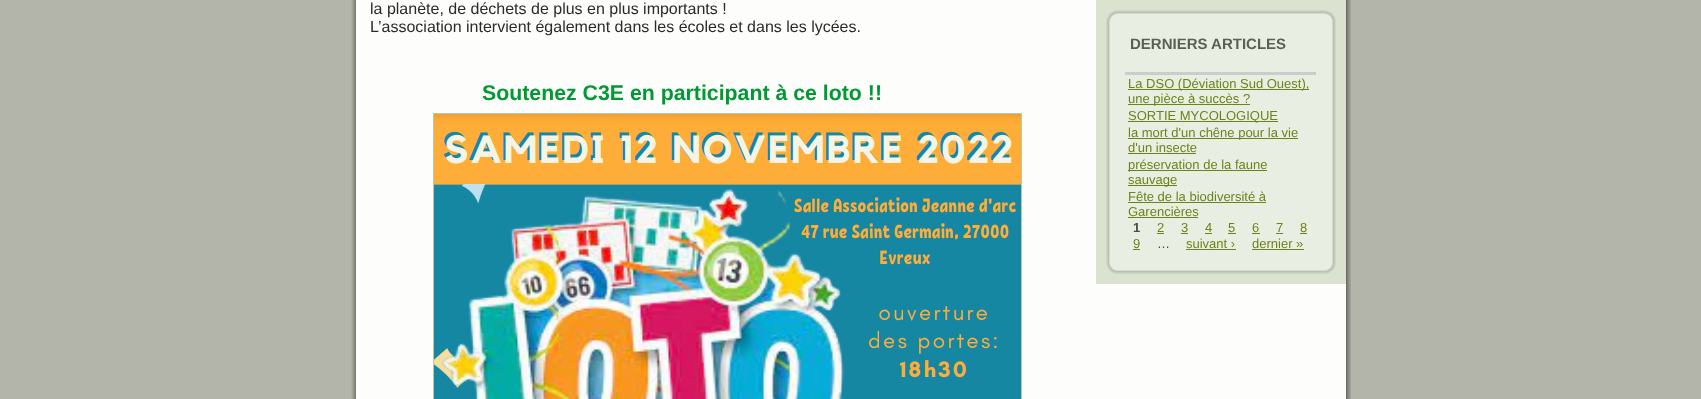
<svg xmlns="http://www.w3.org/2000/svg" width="1701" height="399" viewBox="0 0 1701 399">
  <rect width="100%" height="100%" fill="#b3b5aa"/>
  <image x="351" y="0" width="35" height="399" href="img1.png"/>
  <rect x="386" y="0" width="930" height="399" fill="#fdfdfc"/>
  <image x="1316" y="0" width="35" height="399" href="img2.png"/>
  <text x="370" y="14" font-family="Liberation Sans" font-size="16" fill="#2a2c26">la planète, de déchets de plus en plus importants !</text>
  <text x="370" y="32" font-family="Liberation Sans" font-size="16" fill="#2a2c26">L’association intervient également dans les écoles et dans les lycées.</text>
  <text x="482" y="100" font-family="Liberation Sans" font-size="21.3" font-weight="bold" fill="#009933">Soutenez C3E en participant à ce loto !!</text>
  <rect x="433.5" y="113.5" width="588" height="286" fill="none" stroke="#bbc9a6"/>
  <image x="434" y="114" width="587" height="285" href="img3.png"/>
  <rect x="1096" y="0" width="250" height="284" fill="#dbe2d0"/>
  <image x="1106" y="10" width="21" height="21" href="img4.png"/>
  <image x="1127" y="10" width="188" height="21" href="img5.png"/>
  <image x="1315" y="10" width="21" height="21" href="img6.png"/>
  <image x="1106" y="31" width="21" height="222" href="img7.png"/>
  <rect x="1127" y="31" width="188" height="222" fill="#e9eee3"/>
  <image x="1315" y="31" width="21" height="222" href="img8.png"/>
  <text x="1130" y="49" font-family="Liberation Sans" font-size="15" font-weight="bold" fill="#5c5f53">DERNIERS ARTICLES</text>
  <rect x="1125" y="72" width="191" height="3" fill="#cccccc"/>
  <rect x="1128" y="89" width="181" height="1" fill="#6a841a"/>
  <text x="1128" y="88" font-family="Liberation Sans" font-size="13" fill="#6a841a">La DSO (Déviation Sud Ouest),</text>
  <rect x="1128" y="104" width="122" height="1" fill="#6a841a"/>
  <text x="1128" y="103" font-family="Liberation Sans" font-size="13" fill="#6a841a">une pièce à succès ?</text>
  <rect x="1128" y="121" width="150" height="1" fill="#6a841a"/>
  <text x="1128" y="120" font-family="Liberation Sans" font-size="13" fill="#6a841a">SORTIE MYCOLOGIQUE</text>
  <rect x="1128" y="138" width="170" height="1" fill="#6a841a"/>
  <text x="1128" y="137" font-family="Liberation Sans" font-size="13" fill="#6a841a">la mort d'un chêne pour la vie</text>
  <text x="1128" y="152" font-family="Liberation Sans" font-size="13" fill="#6a841a">d'un insecte</text>
  <rect x="1128" y="153" width="68" height="1" fill="#6a841a"/>
  <rect x="1128" y="170" width="139" height="1" fill="#6a841a"/>
  <text x="1128" y="169" font-family="Liberation Sans" font-size="13" fill="#6a841a">préservation de la faune</text>
  <rect x="1128" y="185" width="49" height="1" fill="#6a841a"/>
  <text x="1128" y="184" font-family="Liberation Sans" font-size="13" fill="#6a841a">sauvage</text>
  <text x="1128" y="201" font-family="Liberation Sans" font-size="13" fill="#6a841a">Fête de la biodiversité à</text>
  <rect x="1128" y="202" width="138" height="1" fill="#6a841a"/>
  <text x="1128" y="216" font-family="Liberation Sans" font-size="13" fill="#6a841a">Garencières</text>
  <rect x="1128" y="217" width="70" height="1" fill="#6a841a"/>
  <text x="1133" y="232" font-family="Liberation Sans" font-size="13" font-weight="bold" fill="#4a4c42">1</text>
  <text x="1157" y="232" font-family="Liberation Sans" font-size="13" fill="#6a841a">2</text>
  <rect x="1157" y="233" width="7" height="1" fill="#6a841a"/>
  <text x="1181" y="232" font-family="Liberation Sans" font-size="13" fill="#6a841a">3</text>
  <rect x="1181" y="233" width="7" height="1" fill="#6a841a"/>
  <text x="1205" y="232" font-family="Liberation Sans" font-size="13" fill="#6a841a">4</text>
  <rect x="1205" y="233" width="7" height="1" fill="#6a841a"/>
  <text x="1228" y="232" font-family="Liberation Sans" font-size="13" fill="#6a841a">5</text>
  <rect x="1228" y="233" width="8" height="1" fill="#6a841a"/>
  <text x="1252" y="232" font-family="Liberation Sans" font-size="13" fill="#6a841a">6</text>
  <rect x="1252" y="233" width="8" height="1" fill="#6a841a"/>
  <text x="1276" y="232" font-family="Liberation Sans" font-size="13" fill="#6a841a">7</text>
  <rect x="1276" y="233" width="7" height="1" fill="#6a841a"/>
  <text x="1300" y="232" font-family="Liberation Sans" font-size="13" fill="#6a841a">8</text>
  <rect x="1300" y="233" width="7" height="1" fill="#6a841a"/>
  <text x="1133" y="248" font-family="Liberation Sans" font-size="13" fill="#6a841a">9</text>
  <rect x="1133" y="249" width="7" height="1" fill="#6a841a"/>
  <text x="1157" y="248" font-family="Liberation Sans" font-size="13" fill="#4a4c42">…</text>
  <text x="1186" y="248" font-family="Liberation Sans" font-size="13" fill="#6a841a">suivant ›</text>
  <rect x="1186" y="249" width="50" height="1" fill="#6a841a"/>
  <text x="1252" y="248" font-family="Liberation Sans" font-size="13" fill="#6a841a">dernier »</text>
  <rect x="1252" y="249" width="52" height="1" fill="#6a841a"/>
  <image x="1106" y="253" width="21" height="21" href="img9.png"/>
  <image x="1127" y="253" width="188" height="21" href="img10.png"/>
  <image x="1315" y="253" width="21" height="21" href="img11.png"/>
</svg>
